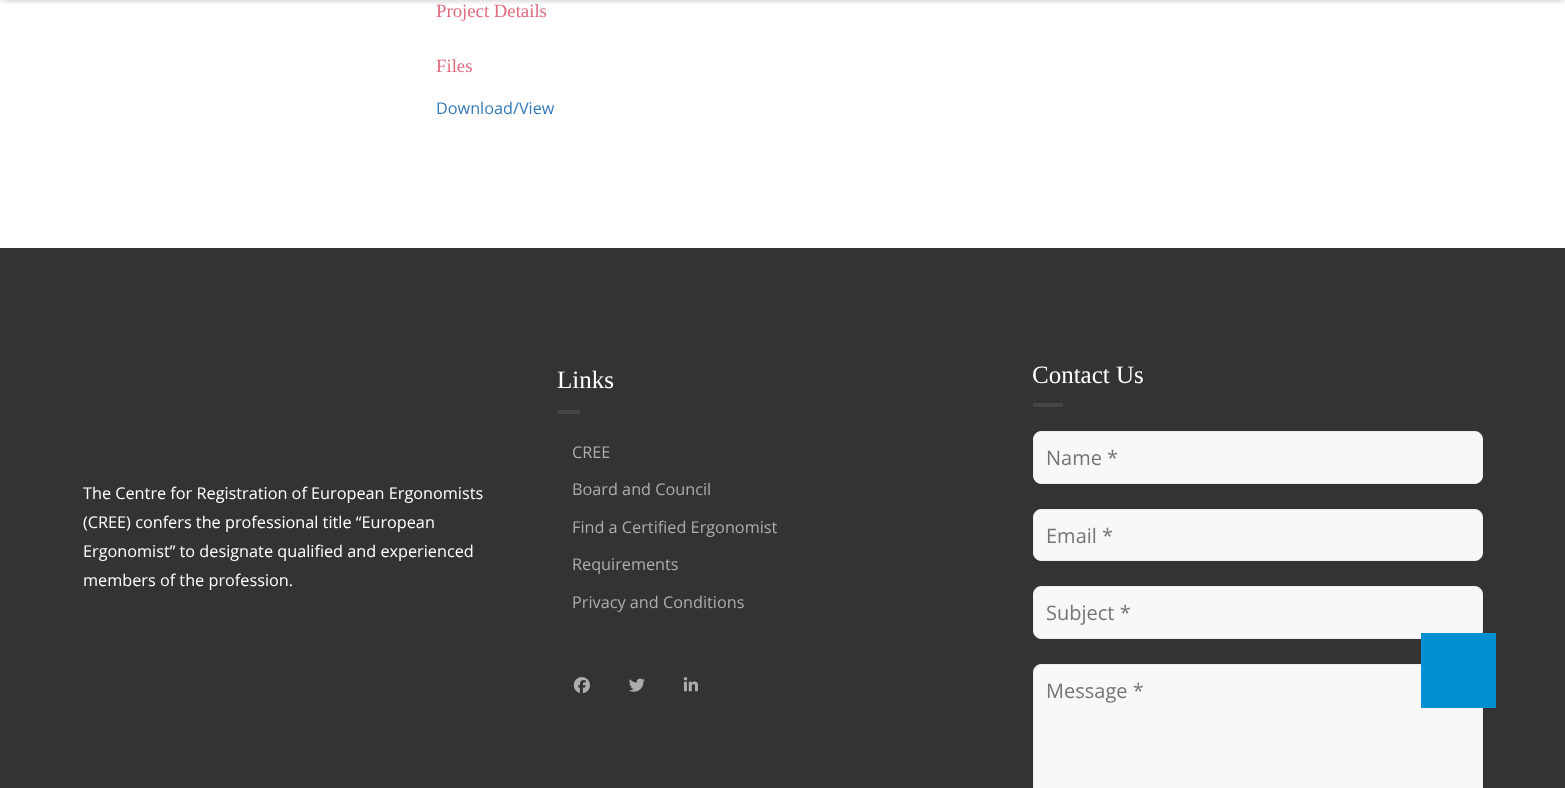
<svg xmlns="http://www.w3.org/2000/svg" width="1565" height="788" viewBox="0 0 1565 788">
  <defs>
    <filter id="blur1" x="-50%" y="-200%" width="200%" height="500%"><feGaussianBlur stdDeviation="3"/></filter>
  </defs>
  <rect width="100%" height="100%" fill="#ffffff"/>
  <rect x="3" y="-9" width="1560" height="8" fill="#2a2a2a" fill-opacity="0.4" filter="url(#blur1)"/>
  <text x="436" y="17" font-family="Liberation Serif" font-size="18.75" fill="#e26b7f">Project Details</text>
  <text x="436" y="72" font-family="Liberation Serif" font-size="18.75" fill="#e26b7f">Files</text>
  <text x="436" y="114" font-family="Open Sans" font-size="16.25" fill="#337ab7">Download/View</text>
  <rect x="0" y="248" width="1565" height="540" fill="#333333"/>
  <text x="83" y="499" font-family="Open Sans" font-size="16.25" fill="#ffffff">The Centre for Registration of European Ergonomists</text>
  <text x="83" y="528" font-family="Open Sans" font-size="16.25" fill="#ffffff">(CREE) confers the professional title “European</text>
  <text x="83" y="557" font-family="Open Sans" font-size="16.25" fill="#ffffff">Ergonomist” to designate qualified and experienced</text>
  <text x="83" y="586" font-family="Open Sans" font-size="16.25" fill="#ffffff">members of the profession.</text>
  <text x="557" y="388" font-family="Liberation Serif" font-size="25" fill="#ffffff">Links</text>
  <rect x="558" y="410" width="22" height="4" fill="#464646"/>
  <text x="572" y="458" font-family="Open Sans" font-size="16.25" fill="#adadad">CREE</text>
  <text x="572" y="495" font-family="Open Sans" font-size="16.25" fill="#adadad">Board and Council</text>
  <text x="572" y="533" font-family="Open Sans" font-size="16.25" fill="#adadad">Find a Certified Ergonomist</text>
  <text x="572" y="570" font-family="Open Sans" font-size="16.25" fill="#adadad">Requirements</text>
  <text x="572" y="608" font-family="Open Sans" font-size="16.25" fill="#adadad">Privacy and Conditions</text>
  <image x="573" y="677" width="17" height="17" href="img1.png"/>
  <image x="629" y="678" width="16" height="14" href="img2.png"/>
  <image x="683" y="677" width="15" height="15" href="img3.png"/>
  <text x="1032" y="383" font-family="Liberation Serif" font-size="25" fill="#ffffff">Contact Us</text>
  <rect x="1033" y="403" width="30" height="4" fill="#464646"/>
  <rect x="1033.5" y="431.5" width="449" height="52" rx="7.5" fill="#f8f8f8" stroke="#eeeeee"/>
  <text x="1046" y="465" font-family="Open Sans" font-size="20" fill="#757575">Name *</text>
  <rect x="1033.5" y="509.5" width="449" height="51" rx="7.5" fill="#f8f8f8" stroke="#eeeeee"/>
  <text x="1046" y="543" font-family="Open Sans" font-size="20" fill="#757575">Email *</text>
  <rect x="1033.5" y="586.5" width="449" height="52" rx="7.5" fill="#f8f8f8" stroke="#eeeeee"/>
  <text x="1046" y="620" font-family="Open Sans" font-size="20" fill="#757575">Subject *</text>
  <rect x="1033.5" y="664.5" width="449" height="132" rx="7.5" fill="#f8f8f8" stroke="#eeeeee"/>
  <text x="1046" y="698" font-family="Open Sans" font-size="20" fill="#757575">Message *</text>
  <rect x="1421" y="633" width="75" height="75" fill="#008fd0"/>
</svg>
